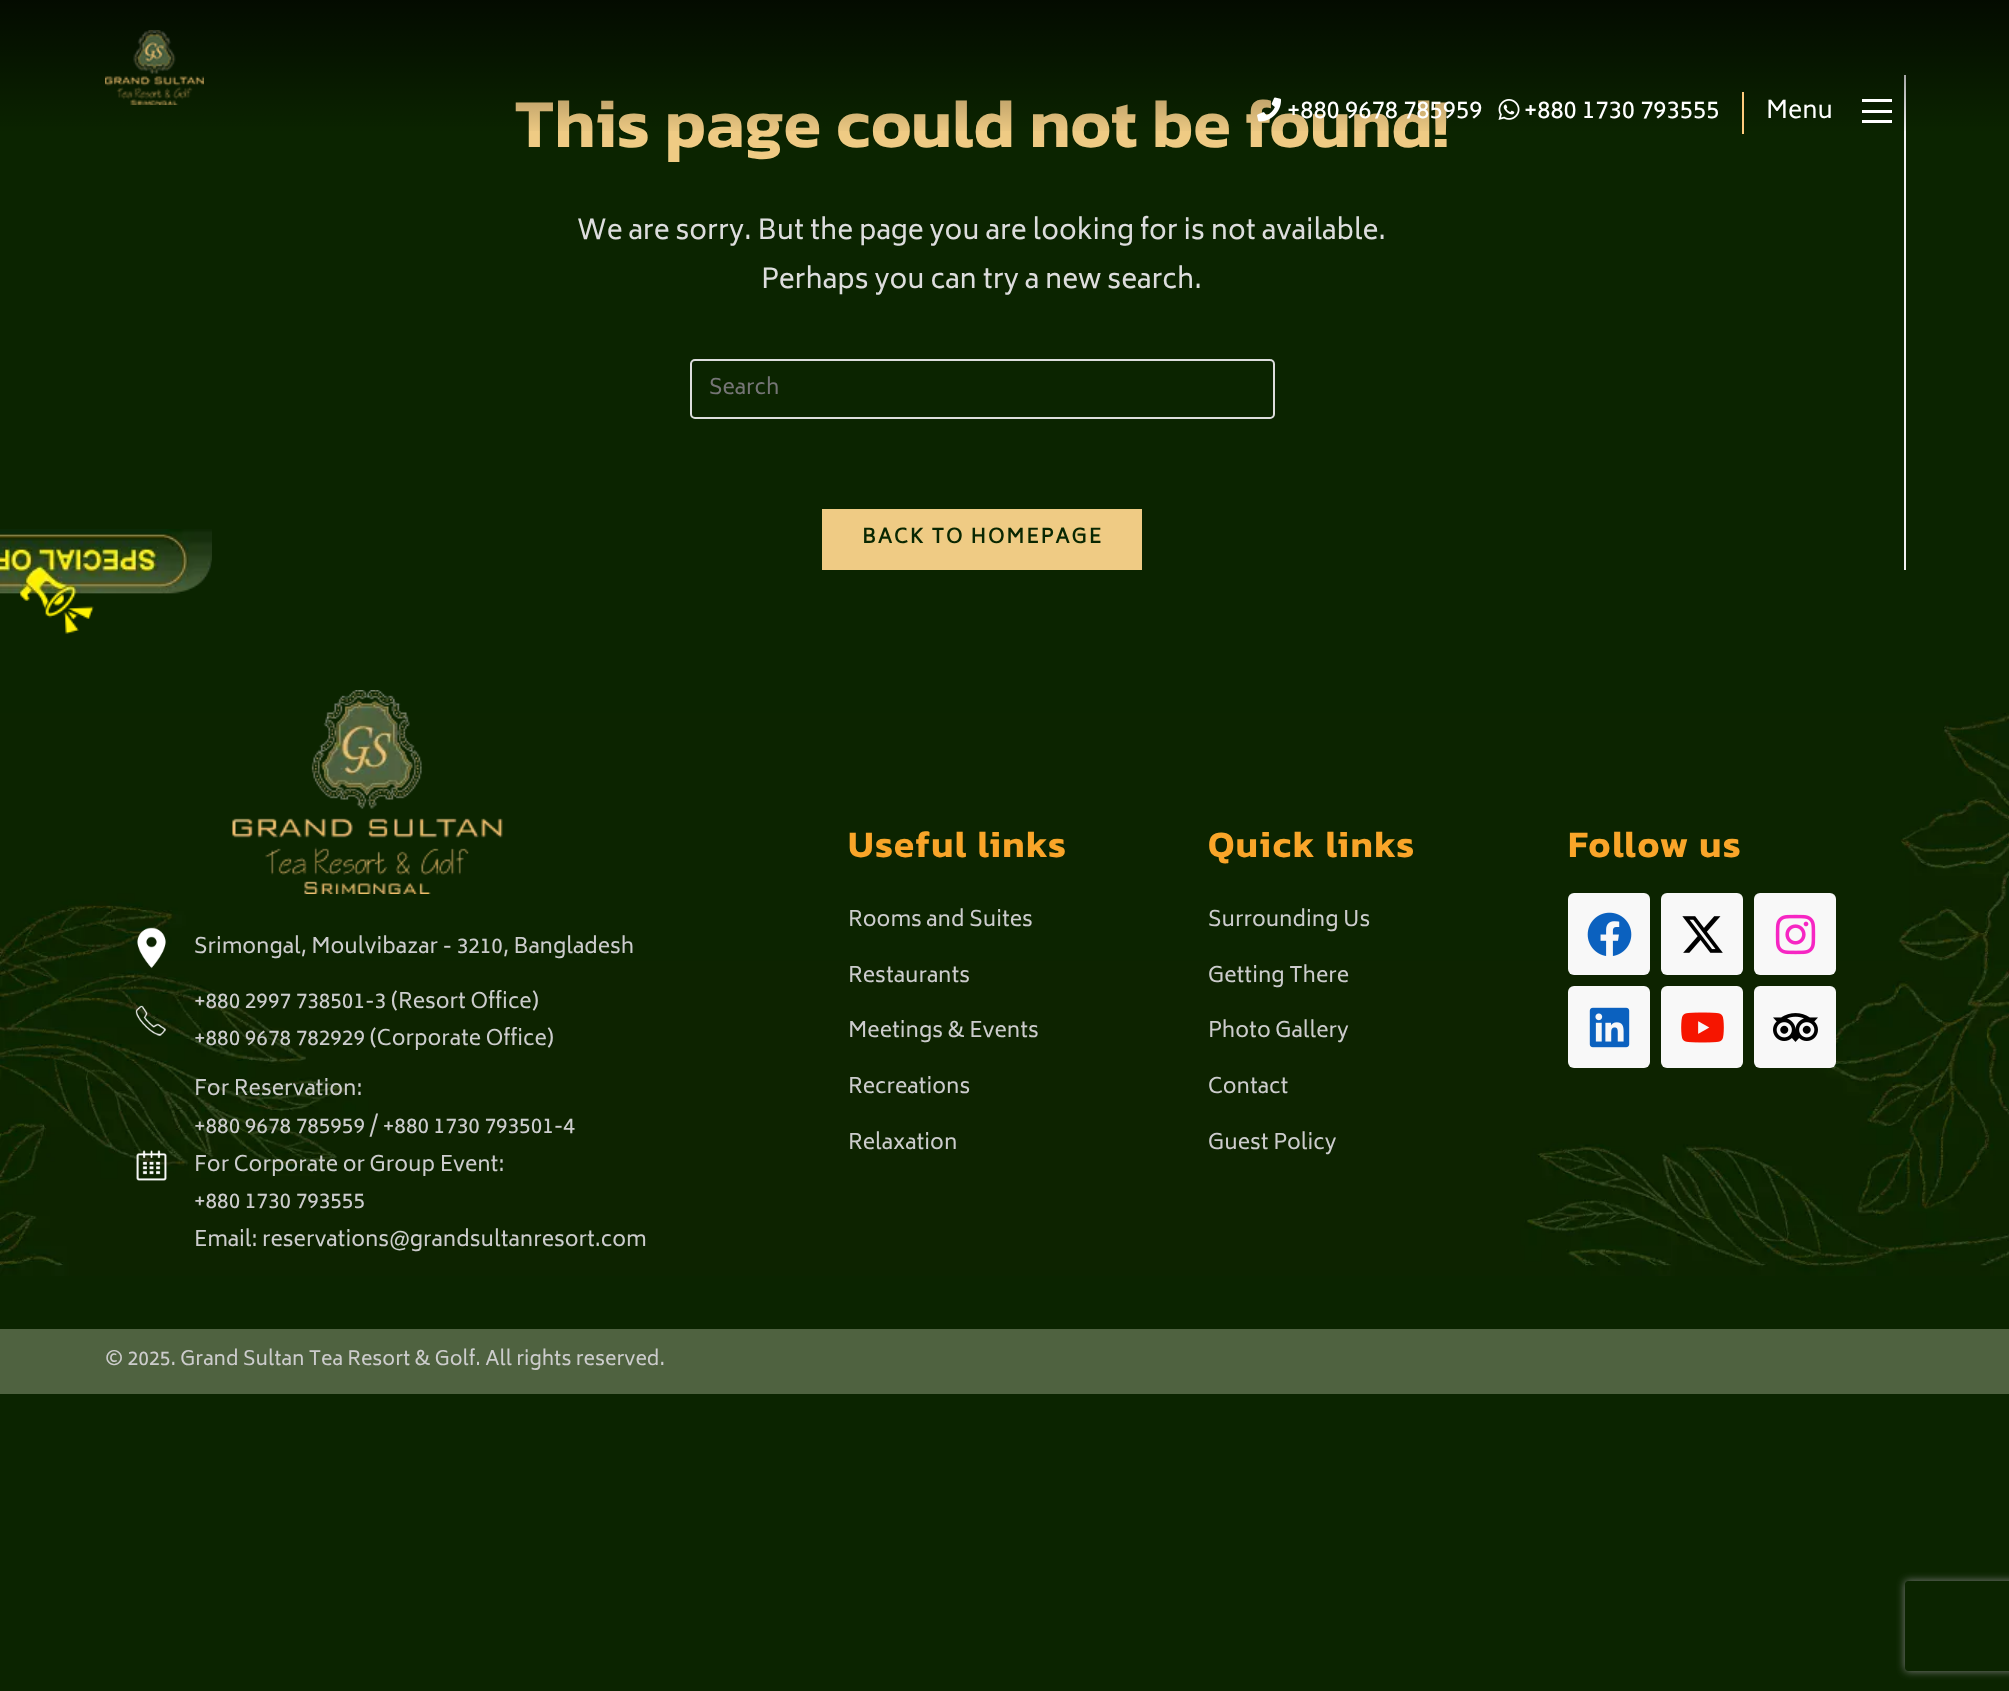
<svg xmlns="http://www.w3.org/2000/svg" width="2009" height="1691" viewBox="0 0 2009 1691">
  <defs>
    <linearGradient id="g1" gradientUnits="userSpaceOnUse" x1="1005" y1="135" x2="1005" y2="0"><stop offset="0" stop-color="#000000" stop-opacity="0"/><stop offset="1" stop-color="#000000" stop-opacity="0.7"/></linearGradient>
    <clipPath id="clip1"><path d="M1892 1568H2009V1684H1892ZM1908 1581H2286C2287.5 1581 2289 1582.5 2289 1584V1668C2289 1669.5 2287.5 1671 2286 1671H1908C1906.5 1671 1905 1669.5 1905 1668V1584C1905 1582.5 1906.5 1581 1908 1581Z" clip-rule="evenodd"/></clipPath>
    <filter id="blur1" x="-50%" y="-200%" width="200%" height="500%"><feGaussianBlur stdDeviation="4"/></filter>
  </defs>
  <rect width="100%" height="100%" fill="#0b2400"/>
  <rect x="1904" y="75" width="2" height="495" fill="#f1f1f1"/>
  <text x="515" y="147" font-family="Kanit" font-size="69" font-weight="600" fill="#efcb84">This page could not be found!</text>
  <text x="577" y="239" font-family="Biryani" font-size="27" fill="#dddddd">We are sorry. But the page you are looking for is not available.</text>
  <text x="761" y="288" font-family="Biryani" font-size="27" fill="#dddddd">Perhaps you can try a new search.</text>
  <rect x="691" y="360" width="583" height="58" rx="4" fill="none" stroke="#dddddd" stroke-width="2"/>
  <text x="709" y="394" font-family="Biryani" font-size="21" fill="#757575">Search</text>
  <rect x="822" y="509" width="320" height="61" fill="#efcb84"/>
  <text x="862" y="543" font-family="Biryani" font-size="19.5" font-weight="bold" letter-spacing="2" fill="#092702">BACK TO HOMEPAGE</text>
  <rect x="0" y="0" width="2009" height="131" fill="url(#g1)"/>
  <image x="105" y="30" width="99" height="75" href="img1.png"/>
  <image x="1257" y="97" width="24" height="25" href="img2.png"/>
  <text x="1287" y="118" font-family="Biryani" font-size="24" fill="#ffffff">+880 9678 785959</text>
  <image x="1498" y="99" width="22" height="21" href="img3.png"/>
  <text x="1524" y="118" font-family="Biryani" font-size="24" fill="#ffffff">+880 1730 793555</text>
  <rect x="1742" y="92" width="2" height="42" fill="#ffcb7d"/>
  <text x="1766" y="118" font-family="Biryani" font-size="24" fill="#ffffff">Menu</text>
  <rect x="1862" y="110" width="30" height="3" fill="#ffffff"/>
  <rect x="1862" y="99" width="30" height="3" fill="#ffffff"/>
  <rect x="1862" y="120" width="30" height="3" fill="#ffffff"/>
  <image x="0" y="713" width="2009" height="563" href="img4.png"/>
  <text x="848" y="857" font-family="Kanit" font-size="37.5" font-weight="600" letter-spacing="1.5" fill="#f9a529">Useful links</text>
  <text x="848" y="926" font-family="Biryani" font-size="21" fill="#cccccc">Rooms and Suites</text>
  <text x="848" y="982" font-family="Biryani" font-size="21" fill="#cccccc">Restaurants</text>
  <text x="848" y="1037" font-family="Biryani" font-size="21" fill="#cccccc">Meetings &amp; Events</text>
  <text x="848" y="1093" font-family="Biryani" font-size="21" fill="#cccccc">Recreations</text>
  <text x="848" y="1149" font-family="Biryani" font-size="21" fill="#cccccc">Relaxation</text>
  <text x="1208" y="857" font-family="Kanit" font-size="37.5" font-weight="600" letter-spacing="1.5" fill="#f9a529">Quick links</text>
  <text x="1208" y="926" font-family="Biryani" font-size="21" fill="#cccccc">Surrounding Us</text>
  <text x="1208" y="982" font-family="Biryani" font-size="21" fill="#cccccc">Getting There</text>
  <text x="1208" y="1037" font-family="Biryani" font-size="21" fill="#cccccc">Photo Gallery</text>
  <text x="1208" y="1093" font-family="Biryani" font-size="21" fill="#cccccc">Contact</text>
  <text x="1208" y="1149" font-family="Biryani" font-size="21" fill="#cccccc">Guest Policy</text>
  <text x="1568" y="857" font-family="Kanit" font-size="37.5" font-weight="600" letter-spacing="1.5" fill="#f9a529">Follow us</text>
  <rect x="1568" y="893" width="82" height="82" rx="6" fill="#f8f8f8"/>
  <image x="1587" y="912" width="45" height="44" href="img5.png"/>
  <rect x="1661" y="893" width="82" height="82" rx="6" fill="#f8f8f8"/>
  <image x="1682" y="916" width="41" height="37" href="img6.png"/>
  <rect x="1754" y="893" width="82" height="82" rx="6" fill="#f8f8f8"/>
  <image x="1775" y="914" width="41" height="41" href="img7.png"/>
  <rect x="1568" y="986" width="82" height="82" rx="6" fill="#f8f8f8"/>
  <image x="1589" y="1007" width="41" height="41" href="img8.png"/>
  <rect x="1661" y="986" width="82" height="82" rx="6" fill="#f8f8f8"/>
  <image x="1681" y="1012" width="43" height="31" href="img9.png"/>
  <rect x="1754" y="986" width="82" height="82" rx="6" fill="#f8f8f8"/>
  <image x="1773" y="1013" width="45" height="29" href="img10.png"/>
  <image x="232" y="690" width="271" height="204" href="img11.png"/>
  <image x="137" y="927" width="29" height="42" href="img12.png"/>
  <text x="194" y="953" font-family="Biryani" font-size="21" fill="#cccccc">Srimongal, Moulvibazar - 3210, Bangladesh</text>
  <image x="135" y="1005" width="31" height="31" href="img13.png"/>
  <text x="194" y="1008" font-family="Biryani" font-size="21" fill="#cccccc">+880 2997 738501-3 (Resort Office)</text>
  <text x="194" y="1045" font-family="Biryani" font-size="21" fill="#cccccc">+880 9678 782929 (Corporate Office)</text>
  <image x="136" y="1150" width="31" height="31" href="img14.png"/>
  <text x="194" y="1095" font-family="Biryani" font-size="21" fill="#cccccc">For Reservation:</text>
  <text x="194" y="1133" font-family="Biryani" font-size="21" fill="#cccccc">+880 9678 785959 / +880 1730 793501-4</text>
  <text x="194" y="1171" font-family="Biryani" font-size="21" fill="#cccccc">For Corporate or Group Event:</text>
  <text x="194" y="1208" font-family="Biryani" font-size="21" fill="#cccccc">+880 1730 793555</text>
  <text x="194" y="1246" font-family="Biryani" font-size="21" fill="#cccccc">Email: reservations@grandsultanresort.com</text>
  <rect x="0" y="1329" width="2009" height="65" fill="#4f6240"/>
  <text x="105" y="1365" font-family="Biryani" font-size="19.5" fill="#cccccc">© 2025. Grand Sultan Tea Resort &amp; Golf. All rights reserved.</text>
  <image x="0" y="529" width="212" height="105" href="img15.png"/>
  <g clip-path="url(#clip1)">
    <rect x="1905" y="1581" width="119" height="90" rx="3" fill="#808080" filter="url(#blur1)"/>
  </g>
</svg>
